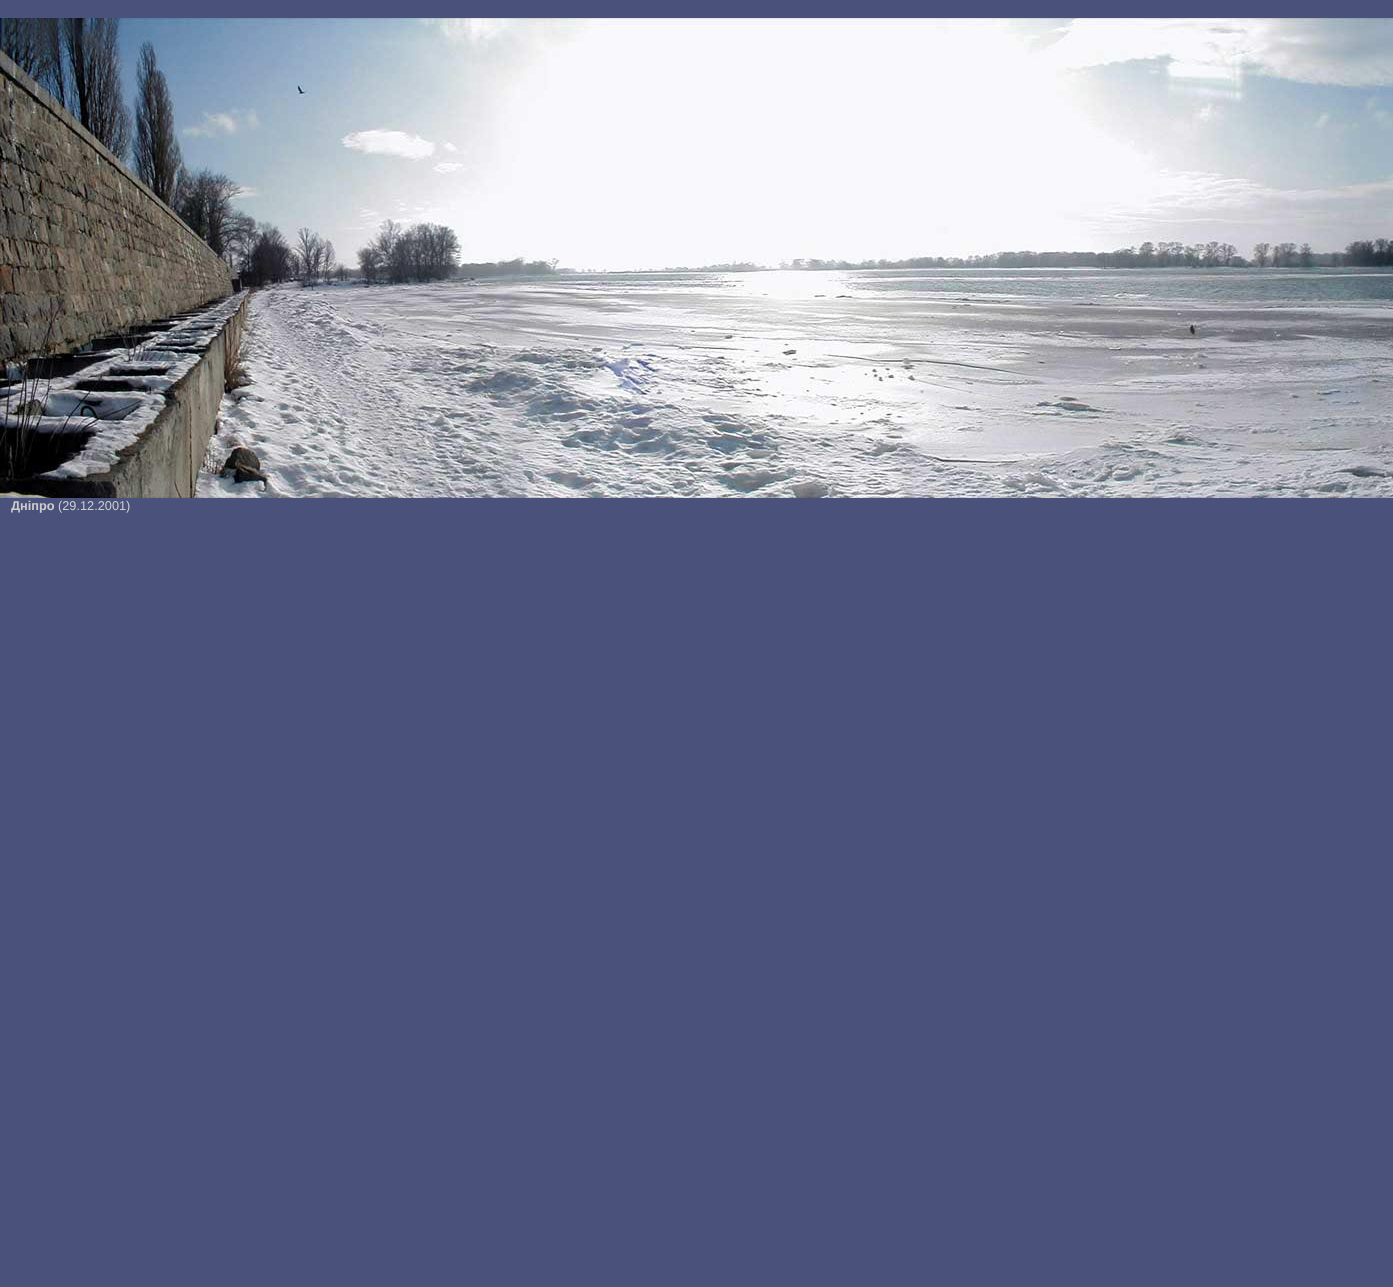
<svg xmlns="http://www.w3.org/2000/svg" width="1393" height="1287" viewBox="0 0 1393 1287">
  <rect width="100%" height="100%" fill="#4a517b"/>
  <image x="0" y="18" width="1393" height="480" href="img1.png"/>
  <text x="11" y="510" font-family="Liberation Sans" font-size="12.75" font-weight="bold" fill="#cccccc">Дніпро</text>
  <text x="58" y="510" font-family="Liberation Sans" font-size="12.75" fill="#cccccc">(29.12.2001)</text>
</svg>
